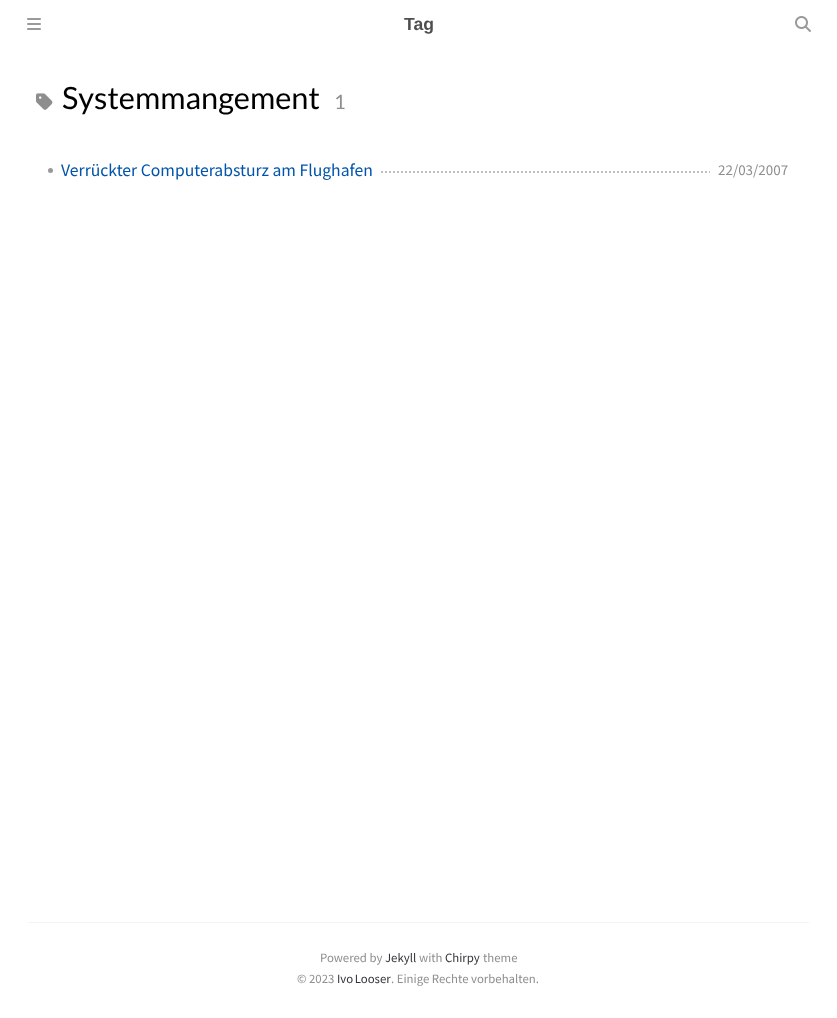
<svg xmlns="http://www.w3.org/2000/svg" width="837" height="1018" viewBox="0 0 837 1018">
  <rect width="100%" height="100%" fill="#ffffff"/>
  <image x="27" y="18" width="14" height="12" href="img1.png"/>
  <text x="404" y="30" font-family="Liberation Sans" font-size="17.6" font-weight="bold" fill="#4e4e4e">Tag</text>
  <image x="795" y="16" width="16" height="16" href="img2.png"/>
  <image x="36" y="93" width="17" height="17" href="img3.png"/>
  <text x="62" y="109" font-family="Lato" font-size="30.75" fill="#000000">Systemmangement</text>
  <text x="334" y="109" font-family="Lato" font-size="20" fill="#8e8e8e">1</text>
  <circle cx="50.5" cy="170.5" r="2.5" fill="#999999"/>
  <text x="61" y="176" font-family="Source Sans Pro" font-size="17.6" fill="#0153ab">Verrückter Computerabsturz am Flughafen</text>
  <path d="M381 172H710" fill="none" stroke="#c0c0c0" stroke-width="2" stroke-dasharray="2 2"/>
  <text x="718" y="175" font-family="Source Sans Pro" font-size="15" fill="#8e8e8e">22/03/2007</text>
  <rect x="28" y="922" width="781" height="1" fill="#f3f3f3"/>
  <text x="320" y="962" font-family="Source Sans Pro" font-size="12.75" fill="#8e8e8e">Powered by</text>
  <text x="385" y="962" font-family="Source Sans Pro" font-size="12.75" fill="#34343c">Jekyll</text>
  <text x="419" y="962" font-family="Source Sans Pro" font-size="12.75" fill="#8e8e8e">with</text>
  <text x="445" y="962" font-family="Source Sans Pro" font-size="12.75" fill="#34343c">Chirpy</text>
  <text x="483" y="962" font-family="Source Sans Pro" font-size="12.75" fill="#8e8e8e">theme</text>
  <text x="297" y="983" font-family="Source Sans Pro" font-size="12.75" fill="#8e8e8e">© 2023</text>
  <text x="337" y="983" word-spacing="-1" font-family="Source Sans Pro" font-size="12.75" fill="#34343c">Ivo Looser</text>
  <text x="391" y="983" font-family="Source Sans Pro" font-size="12.75" fill="#8e8e8e">. Einige Rechte vorbehalten.</text>
</svg>
